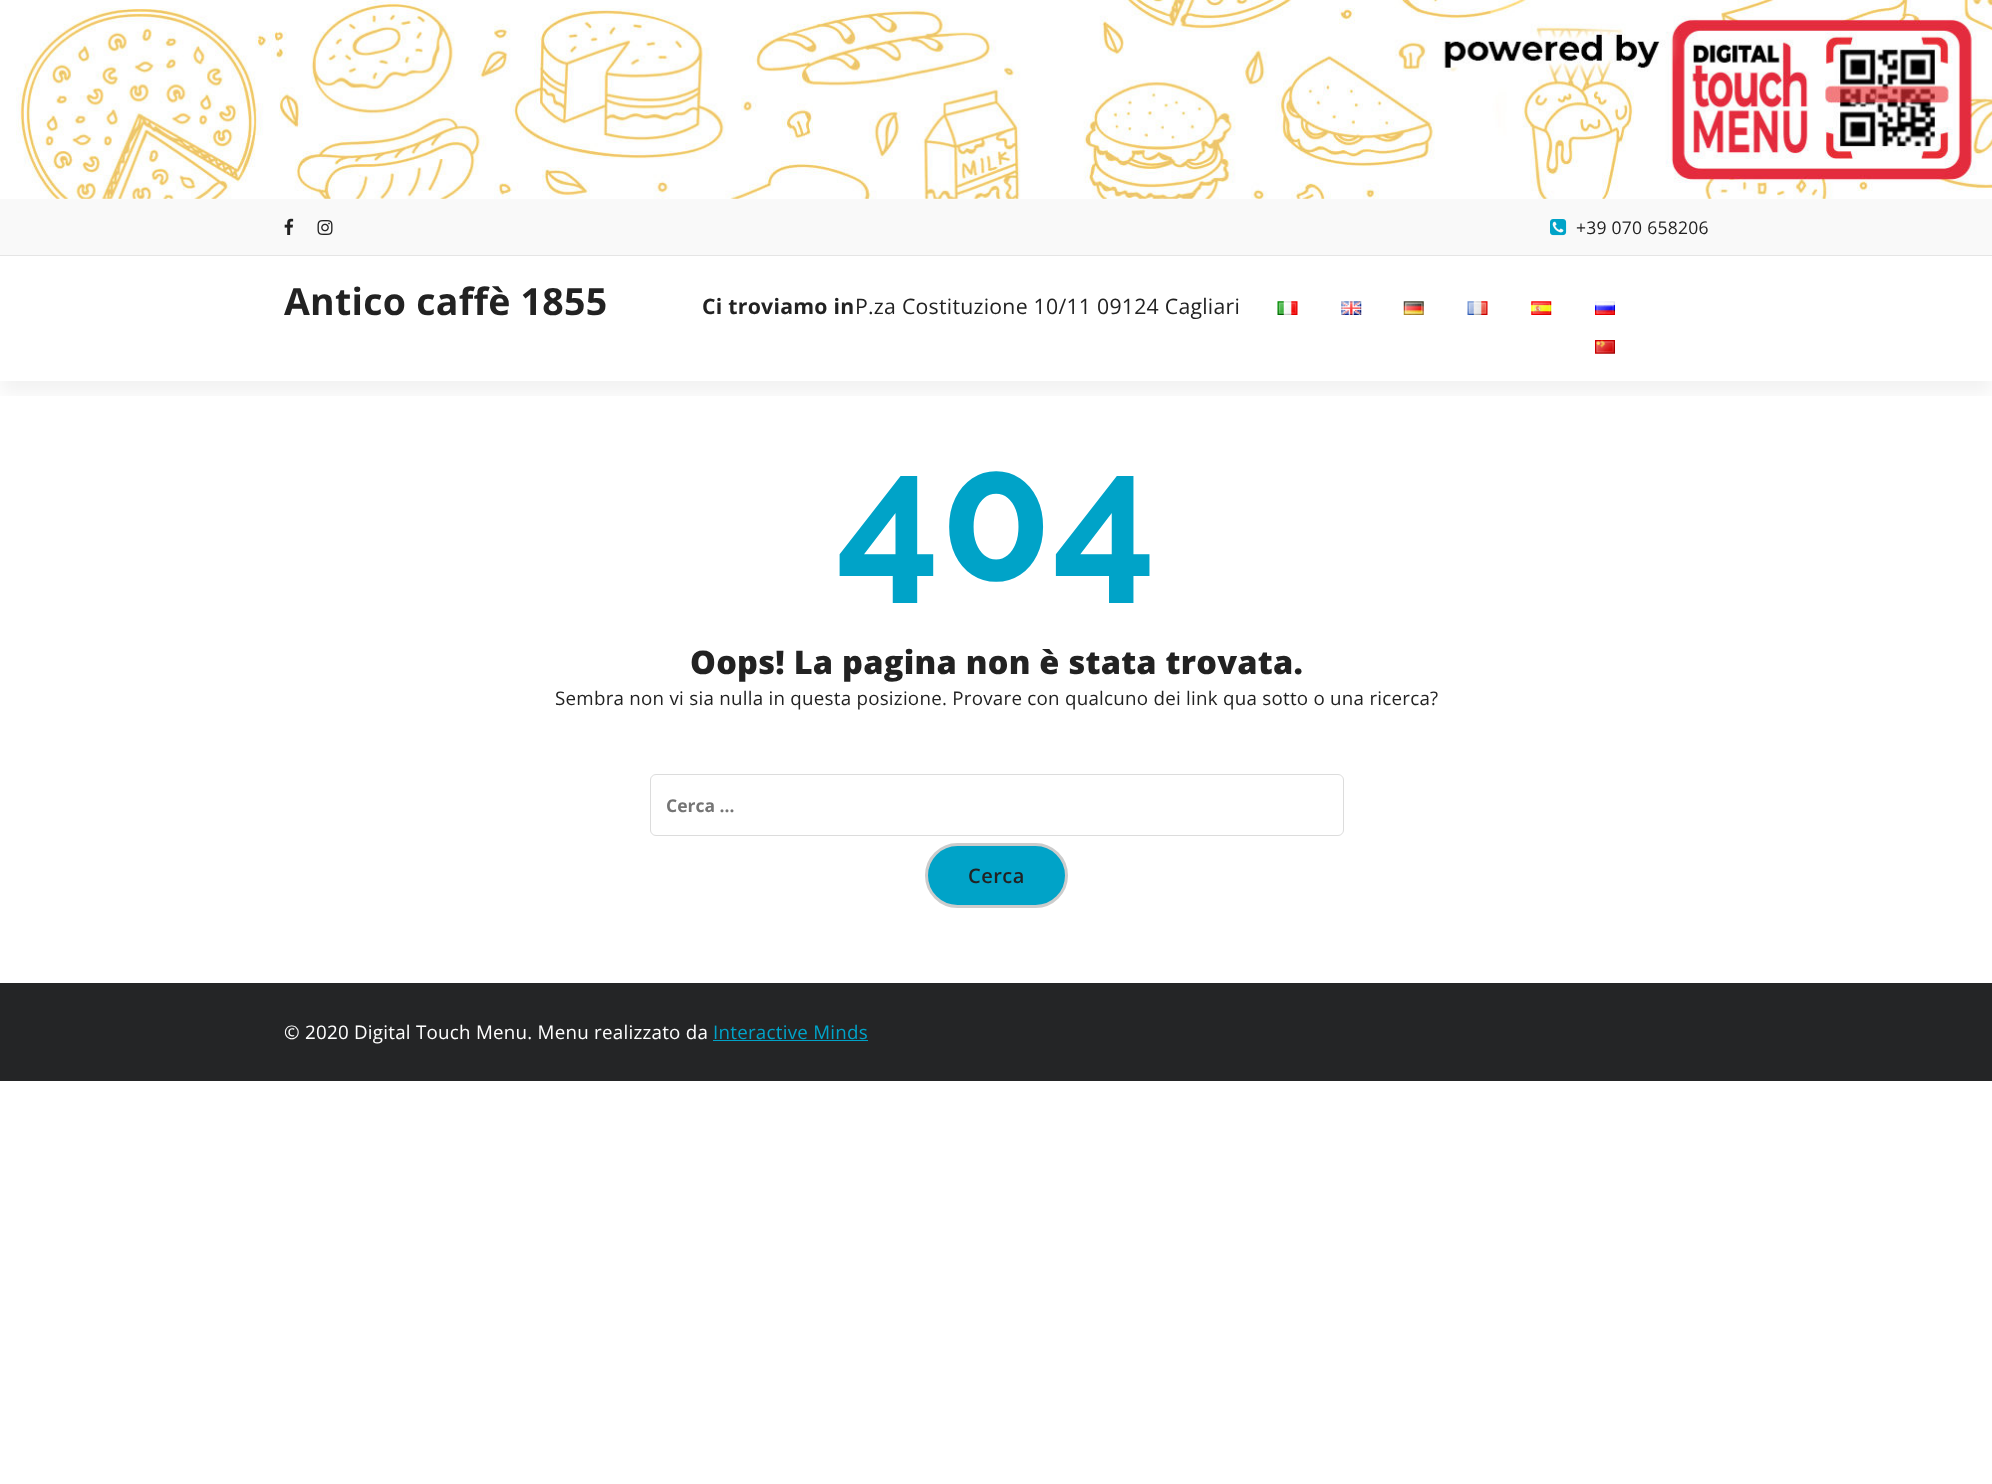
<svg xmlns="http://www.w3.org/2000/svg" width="1992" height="1484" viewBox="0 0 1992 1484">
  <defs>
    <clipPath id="clip1"><rect x="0" y="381" width="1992" height="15"/></clipPath>
    <filter id="blur1" x="-50%" y="-200%" width="200%" height="500%"><feGaussianBlur stdDeviation="9.5"/></filter>
  </defs>
  <rect width="100%" height="100%" fill="#ffffff"/>
  <image x="16" y="0" width="1976" height="199" href="img1.png"/>
  <g clip-path="url(#clip1)">
    <rect x="0" y="269" width="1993" height="125" fill="#000000" fill-opacity="0.05" filter="url(#blur1)"/>
  </g>
  <rect x="0" y="199" width="1992" height="56" fill="#f9f9f9"/>
  <rect x="0" y="255" width="1992" height="1" fill="#e5e5e5"/>
  <image x="284" y="218" width="10" height="17" href="img2.png"/>
  <image x="317" y="220" width="16" height="15" href="img3.png"/>
  <image x="1550" y="219" width="17" height="17" href="img4.png"/>
  <text x="1576" y="234" font-family="Open Sans" font-size="17.5" letter-spacing="0.25" fill="#222222">+39 070 658206</text>
  <text x="284" y="315" font-family="Open Sans" font-size="37.5" font-weight="bold" letter-spacing="0.25" fill="#222222">Antico caffè 1855</text>
  <text x="702" y="314" font-family="Open Sans" font-size="21.25" font-weight="bold" letter-spacing="0.25" fill="#222222">Ci troviamo in</text>
  <text x="855" y="314" font-family="Open Sans" font-size="21.25" letter-spacing="0.25" fill="#222222">P.za Costituzione 10/11 09124 Cagliari</text>
  <image x="1277" y="301" width="21" height="14" href="img5.png"/>
  <image x="1341" y="301" width="21" height="14" href="img6.png"/>
  <image x="1403" y="301" width="21" height="14" href="img7.png"/>
  <image x="1467" y="301" width="21" height="14" href="img8.png"/>
  <image x="1531" y="301" width="21" height="14" href="img9.png"/>
  <image x="1595" y="301" width="20" height="14" href="img10.png"/>
  <image x="1595" y="340" width="20" height="14" href="img11.png"/>
  <text x="836" y="580" font-family="Raleway" font-size="182" font-weight="bold" letter-spacing="0.25" fill="#00a3c8">404</text>
  <text x="690" y="674" font-family="Open Sans" font-size="32.5" font-weight="800" letter-spacing="0.25" fill="#222222">Oops! La pagina non è stata trovata.</text>
  <text x="555" y="705" font-family="Open Sans" font-size="18.75" letter-spacing="0.25" fill="#222222">Sembra non vi sia nulla in questa posizione. Provare con qualcuno dei link qua sotto o una ricerca?</text>
  <rect x="650.5" y="774.5" width="693" height="61" rx="5.5" fill="none" stroke="#dcdcdc"/>
  <text x="666" y="812" font-family="Open Sans" font-size="17.5" font-weight="bold" fill="#757575">Cerca …</text>
  <rect x="926.5" y="844.5" width="140" height="62" rx="31" fill="#00a3c8" stroke="#cccccc" stroke-width="3"/>
  <text x="968" y="883" font-family="Open Sans" font-size="20" font-weight="600" letter-spacing="0.5" fill="#222222">Cerca</text>
  <rect x="0" y="983" width="1992" height="98" fill="#242526"/>
  <text x="284" y="1039" font-family="Open Sans" font-size="18.75" letter-spacing="0.25" fill="#ffffff">© 2020 Digital Touch Menu. Menu realizzato da</text>
  <text x="713" y="1039" font-family="Open Sans" font-size="18.75" letter-spacing="0.25" fill="#00a3c8">Interactive Minds</text>
  <rect x="713" y="1040" width="155" height="1" fill="#00a3c8"/>
</svg>
